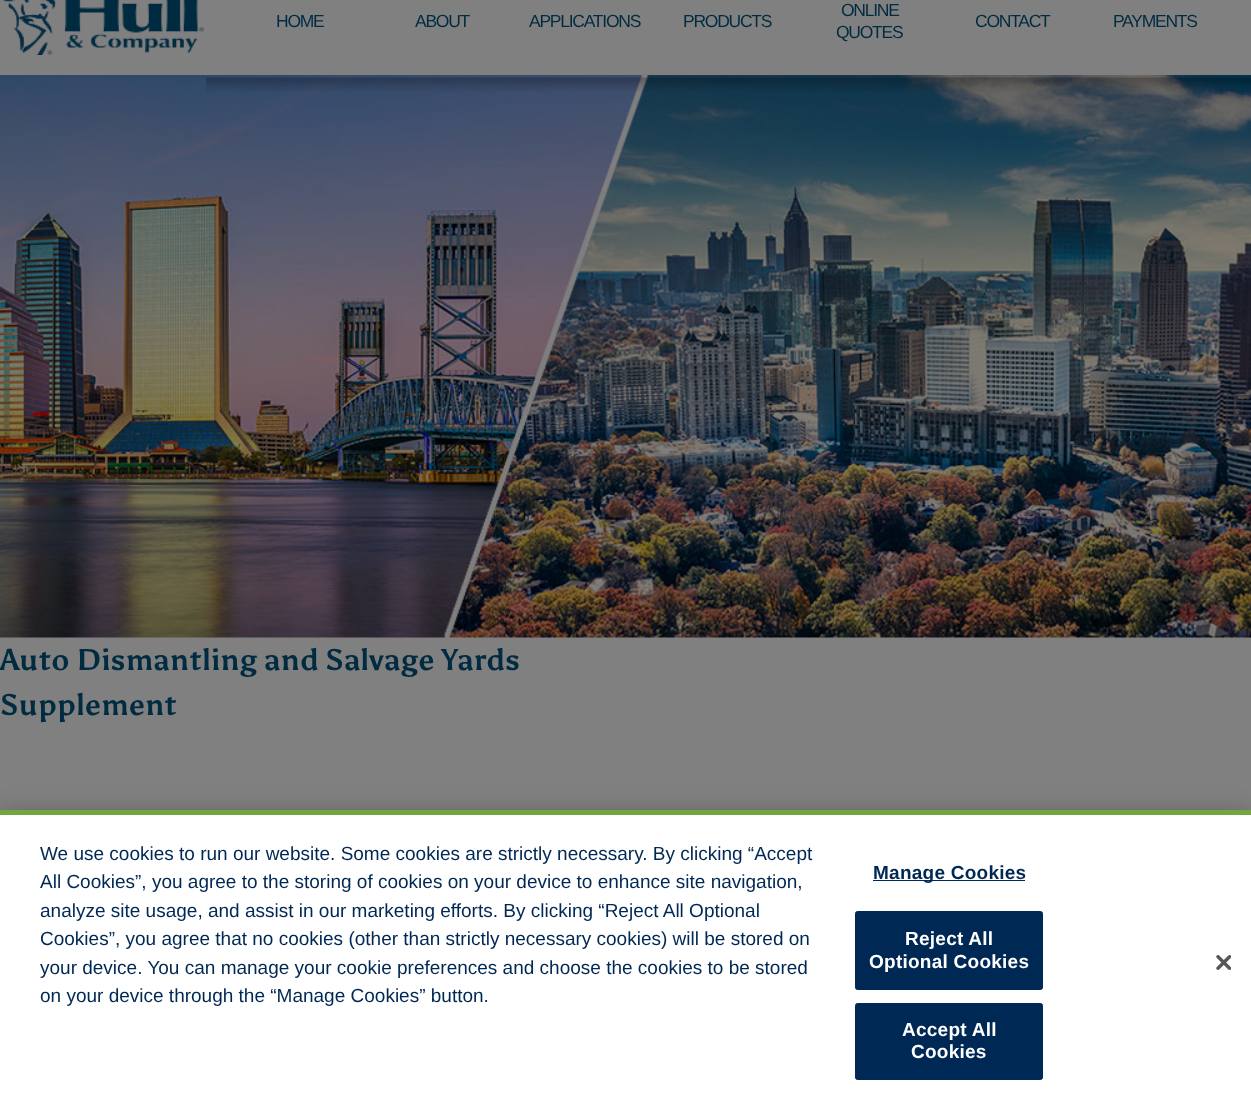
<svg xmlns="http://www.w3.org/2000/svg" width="1251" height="1104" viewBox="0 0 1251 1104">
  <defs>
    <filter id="blur1" x="-50%" y="-200%" width="200%" height="500%"><feGaussianBlur stdDeviation="11"/></filter>
  </defs>
  <rect width="100%" height="100%" fill="#808080"/>
  <image x="1" y="0" width="203" height="55" href="img1.png"/>
  <text x="276" y="27" font-family="Liberation Sans" font-size="17.5" letter-spacing="-1.25" fill="#002b40">HOME</text>
  <text x="415" y="27" font-family="Liberation Sans" font-size="17.5" letter-spacing="-1.25" fill="#002b40">ABOUT</text>
  <text x="529" y="27" font-family="Liberation Sans" font-size="17.5" letter-spacing="-1.25" fill="#002b40">APPLICATIONS</text>
  <text x="683" y="27" font-family="Liberation Sans" font-size="17.5" letter-spacing="-1.25" fill="#002b40">PRODUCTS</text>
  <text x="841" y="16" font-family="Liberation Sans" font-size="17.5" letter-spacing="-1.25" fill="#002b40">ONLINE</text>
  <text x="836" y="38" font-family="Liberation Sans" font-size="17.5" letter-spacing="-1.25" fill="#002b40">QUOTES</text>
  <text x="975" y="27" font-family="Liberation Sans" font-size="17.5" letter-spacing="-1.25" fill="#002b40">CONTACT</text>
  <text x="1113" y="27" font-family="Liberation Sans" font-size="17.5" letter-spacing="-1.25" fill="#002b40">PAYMENTS</text>
  <image x="0" y="75" width="1251" height="563" href="img3.png"/>
  <image x="206" y="77" width="1045" height="15" href="img2.png"/>
  <text x="0" y="670" font-family="Asul" font-size="30" font-weight="bold" fill="#002b40">Auto Dismantling and Salvage Yards</text>
  <text x="0" y="715" font-family="Asul" font-size="30" font-weight="bold" fill="#002b40">Supplement</text>
  <rect x="0" y="810" width="1251" height="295" fill="#000000" fill-opacity="0.2" filter="url(#blur1)"/>
  <rect x="0" y="815" width="1251" height="289" fill="#ffffff"/>
  <rect x="0" y="810" width="1251" height="5" fill="#73a641"/>
  <text x="40" y="860" font-family="Liberation Sans" font-size="19" fill="#002855">We use cookies to run our website. Some cookies are strictly necessary. By clicking “Accept</text>
  <text x="40" y="888" font-family="Liberation Sans" font-size="19" fill="#002855">All Cookies”, you agree to the storing of cookies on your device to enhance site navigation,</text>
  <text x="40" y="917" font-family="Liberation Sans" font-size="19" fill="#002855">analyze site usage, and assist in our marketing efforts. By clicking “Reject All Optional</text>
  <text x="40" y="945" font-family="Liberation Sans" font-size="19" fill="#002855">Cookies”, you agree that no cookies (other than strictly necessary cookies) will be stored on</text>
  <text x="40" y="974" font-family="Liberation Sans" font-size="19" fill="#002855">your device. You can manage your cookie preferences and choose the cookies to be stored</text>
  <text x="40" y="1002" font-family="Liberation Sans" font-size="19" fill="#002855">on your device through the “Manage Cookies” button.</text>
  <rect x="873" y="880" width="152" height="1" fill="#002855"/>
  <text x="873" y="879" font-family="Liberation Sans" font-size="19" font-weight="bold" letter-spacing="0.25" fill="#002855">Manage Cookies</text>
  <rect x="855.5" y="911.5" width="187" height="78" rx="2" fill="#002855" stroke="#002855"/>
  <text x="905" y="945" font-family="Liberation Sans" font-size="19" font-weight="bold" letter-spacing="0.25" fill="#ffffff">Reject All</text>
  <text x="869" y="968" font-family="Liberation Sans" font-size="19" font-weight="bold" letter-spacing="0.25" fill="#ffffff">Optional Cookies</text>
  <rect x="855.5" y="1003.5" width="187" height="76" rx="2" fill="#002855" stroke="#002855"/>
  <text x="902" y="1036" font-family="Liberation Sans" font-size="19" font-weight="bold" letter-spacing="0.25" fill="#ffffff">Accept All</text>
  <text x="911" y="1058" font-family="Liberation Sans" font-size="19" font-weight="bold" letter-spacing="0.25" fill="#ffffff">Cookies</text>
  <image x="1216" y="955" width="15" height="15" href="img4.png"/>
</svg>
